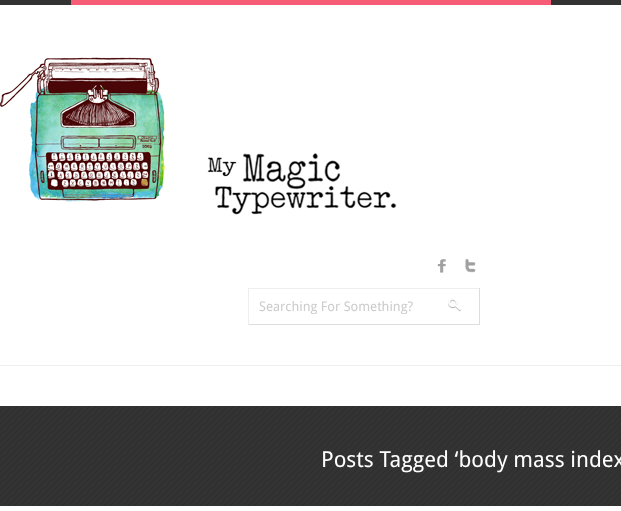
<svg xmlns="http://www.w3.org/2000/svg" width="621" height="511" viewBox="0 0 621 511">
  <defs>
    <clipPath id="clip1"><rect x="259" y="299" width="210" height="15"/></clipPath>
  </defs>
  <rect width="100%" height="100%" fill="#ffffff"/>
  <rect x="0" y="0" width="621" height="5" fill="#333333"/>
  <rect x="71" y="0" width="480" height="5" fill="#f75c76"/>
  <image x="0" y="57" width="397" height="158" href="img1.png"/>
  <image x="437" y="259" width="9" height="14" href="img2.png"/>
  <image x="465" y="259" width="11" height="14" href="img3.png"/>
  <image x="448" y="299" width="13" height="13" href="img4.png"/>
  <rect x="248" y="288" width="232" height="1" fill="#eeeeee"/>
  <rect x="479" y="288" width="1" height="37" fill="#dddddd"/>
  <rect x="248" y="324" width="232" height="1" fill="#dddddd"/>
  <rect x="248" y="288" width="1" height="37" fill="#eeeeee"/>
  <g clip-path="url(#clip1)">
    <text x="259" y="311" font-family="Droid Sans" font-size="13.25" fill="#cccccc">Searching For Something?</text>
  </g>
  <rect x="0" y="365" width="621" height="1" fill="#eeeeee"/>
  <rect x="0" y="406" width="621" height="100" fill="#333333"/>
  <image x="0" y="406" width="621" height="100" href="img5.png"/>
  <text x="321" y="467" font-family="Droid Sans" font-size="22" fill="#ffffff">Posts Tagged ‘body mass index</text>
</svg>
